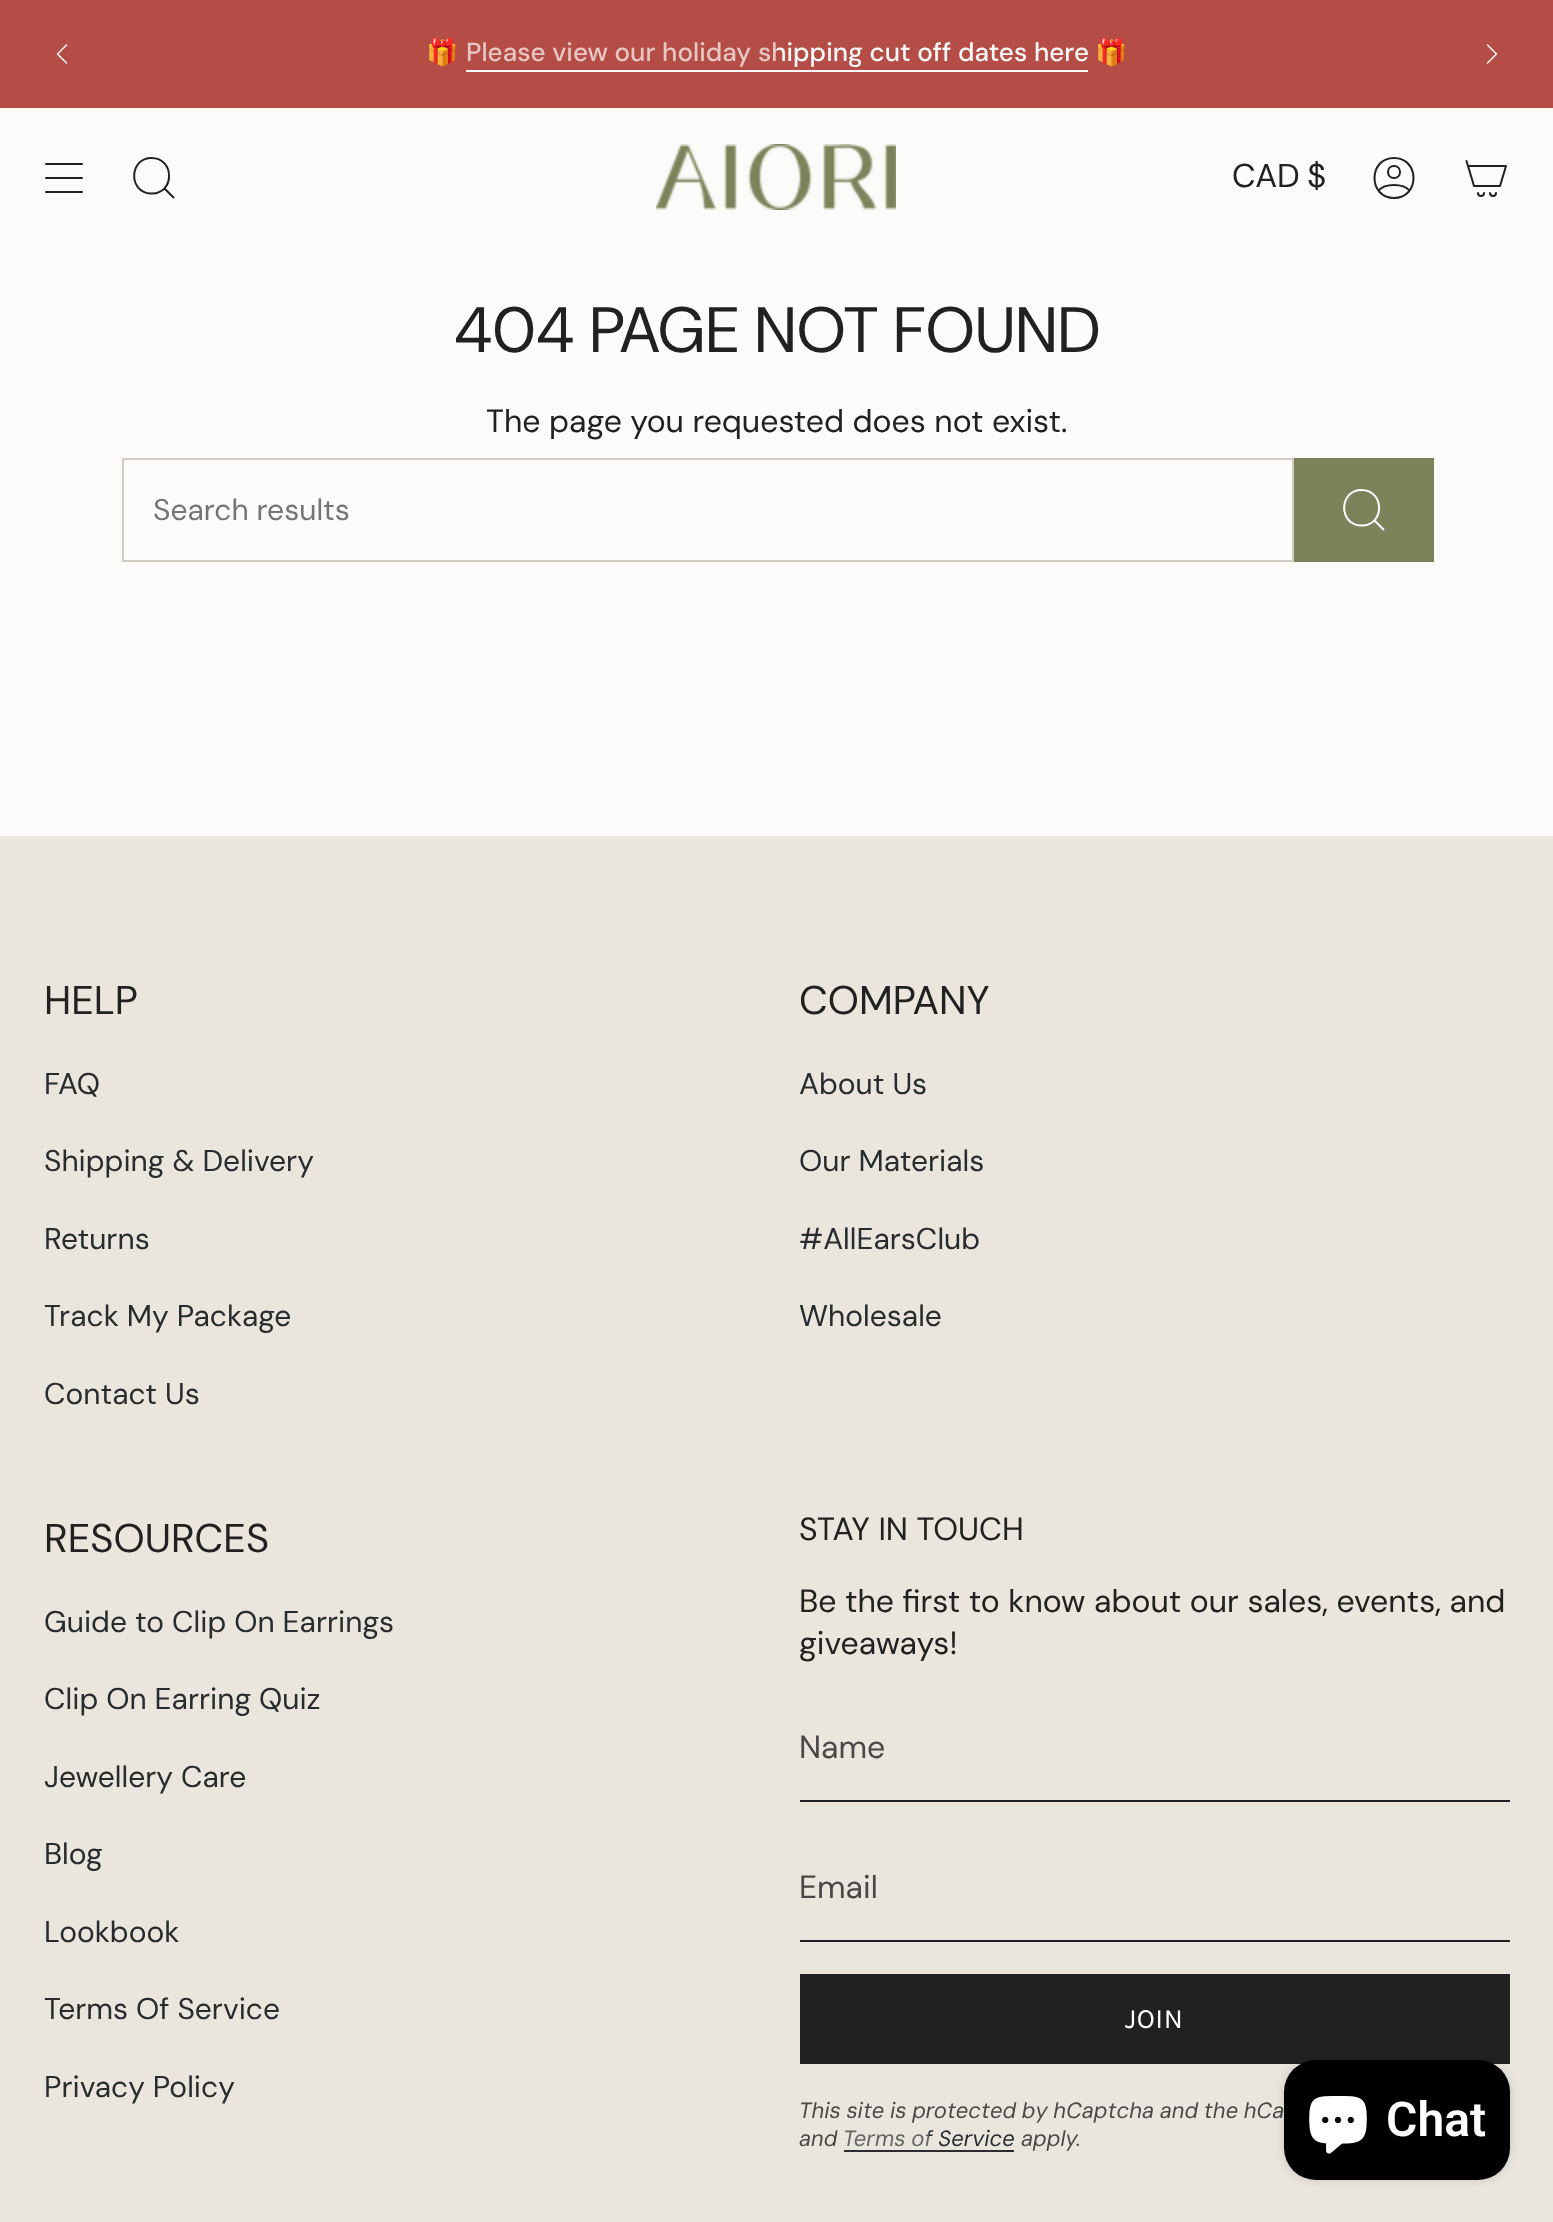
<svg xmlns="http://www.w3.org/2000/svg" width="1553" height="2222" viewBox="0 0 1553 2222">
  <defs>
    <linearGradient id="g1" gradientUnits="userSpaceOnUse" x1="466" y1="54" x2="1089" y2="54"><stop offset="0" stop-color="#e6c7c3"/><stop offset="0.5" stop-color="#e6c7c3"/><stop offset="0.5" stop-color="#fcfbf9"/><stop offset="1" stop-color="#fcfbf9"/></linearGradient>
    <linearGradient id="g2" gradientUnits="userSpaceOnUse" x1="843" y1="2138" x2="1015" y2="2138"><stop offset="0" stop-color="#626463"/><stop offset="0.5" stop-color="#626463"/><stop offset="0.5" stop-color="#282c2e"/><stop offset="1" stop-color="#282c2e"/></linearGradient>
    <filter id="blur1" x="-50%" y="-200%" width="200%" height="500%"><feGaussianBlur stdDeviation="5"/></filter>
  </defs>
  <rect width="100%" height="100%" fill="#fcfbf9"/>
  <rect x="0" y="0" width="1553" height="108" fill="#b44d46"/>
  <path d="M66.5 45L57.5 54L66.5 63" fill="none" stroke="#fcfbf9" stroke-width="1.5" stroke-linecap="round" stroke-linejoin="round"/>
  <text x="426" y="61" font-family="Noto Color Emoji" font-size="26" fill="#fcfbf9">🎁</text>
  <text x="466" y="61" font-family="DM Sans" font-size="26" font-weight="500" fill="url(#g1)">Please view our holiday shipping cut off dates here</text>
  <rect x="466" y="70" width="622" height="2" fill="#fcfbf9"/>
  <text x="1095" y="61" font-family="Noto Color Emoji" font-size="26" fill="#fcfbf9">🎁</text>
  <path d="M1487.5 45L1496.5 54L1487.5 63" fill="none" stroke="#fcfbf9" stroke-width="1.5" stroke-linecap="round" stroke-linejoin="round"/>
  <path d="M46 164H82M46 178H82M46 192H82" fill="none" stroke="#212121" stroke-width="2" stroke-linecap="round" stroke-linejoin="round"/>
  <path d="M151.5 158C175 158 175 194.5 151 193.5C128 192.5 129 158 151.5 158ZM164 188L174 198" fill="none" stroke="#212121" stroke-width="2"/>
  <image x="656" y="144" width="240" height="66" href="img1.png"/>
  <text x="1232" y="187" font-family="'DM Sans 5'" font-size="33" fill="#212121">CAD</text>
  <text x="1307" y="187" font-family="'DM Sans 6'" font-size="33" fill="#212121">$</text>
  <path d="M1394 158C1368 158 1368 198 1394 198C1420 198 1420 158 1394 158ZM1378.5 190.5C1384.5 183 1403.5 183 1409.5 190.5M1394 178C1402 178 1402 166 1394 166C1386 166 1386 178 1394 178Z" fill="none" stroke="#212121" stroke-width="2" stroke-linecap="round" stroke-linejoin="round"/>
  <path d="M1468 166H1506L1500 186H1474ZM1468 166L1466.5 161M1484 193C1484 197 1478 197 1478 193M1496 193C1496 197 1490 197 1490 193" fill="none" stroke="#212121" stroke-width="2" stroke-linecap="round" stroke-linejoin="round"/>
  <text x="454" y="352" font-family="'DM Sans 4'" font-size="64" fill="#212121">404 PAGE NOT FOUND</text>
  <text x="486" y="432" font-family="DM Sans" font-size="32" fill="#212121">The page you requested does not exist.</text>
  <rect x="123" y="459" width="1170" height="102" fill="none" stroke="#d1cdc4" stroke-width="2"/>
  <text x="153" y="520" font-family="'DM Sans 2'" font-size="30" fill="#757575">Search results</text>
  <rect x="1294" y="458" width="140" height="104" fill="#7c8259"/>
  <path d="M1361.5 490C1385 490 1385 526.5 1361 525.5C1338 524.5 1339 490 1361.5 490ZM1374 520L1384 530" fill="none" stroke="#ffffff" stroke-width="2"/>
  <rect x="0" y="836" width="1553" height="1386" fill="#eae6dd"/>
  <text x="44" y="1014" font-family="'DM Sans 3'" font-size="40" fill="#212121">HELP</text>
  <text x="44" y="1094" font-family="'DM Sans 2'" font-size="30" fill="#282c2e">FAQ</text>
  <text x="44" y="1171" font-family="'DM Sans 2'" font-size="30" fill="#282c2e">Shipping &amp; Delivery</text>
  <text x="44" y="1249" font-family="'DM Sans 2'" font-size="30" fill="#282c2e">Returns</text>
  <text x="44" y="1326" font-family="'DM Sans 2'" font-size="30" fill="#282c2e">Track My Package</text>
  <text x="44" y="1404" font-family="'DM Sans 2'" font-size="30" fill="#282c2e">Contact Us</text>
  <text x="799" y="1014" font-family="'DM Sans 3'" font-size="40" fill="#212121">COMPANY</text>
  <text x="799" y="1094" font-family="'DM Sans 2'" font-size="30" fill="#282c2e">About Us</text>
  <text x="799" y="1171" font-family="'DM Sans 2'" font-size="30" fill="#282c2e">Our Materials</text>
  <text x="799" y="1249" font-family="'DM Sans 2'" font-size="30" fill="#282c2e">#AllEarsClub</text>
  <text x="799" y="1326" font-family="'DM Sans 2'" font-size="30" fill="#282c2e">Wholesale</text>
  <text x="44" y="1552" font-family="'DM Sans 3'" font-size="40" fill="#212121">RESOURCES</text>
  <text x="44" y="1632" font-family="'DM Sans 2'" font-size="30" fill="#282c2e">Guide to Clip On Earrings</text>
  <text x="44" y="1709" font-family="'DM Sans 2'" font-size="30" fill="#282c2e">Clip On Earring Quiz</text>
  <text x="44" y="1787" font-family="'DM Sans 2'" font-size="30" fill="#282c2e">Jewellery Care</text>
  <text x="44" y="1864" font-family="'DM Sans 2'" font-size="30" fill="#282c2e">Blog</text>
  <text x="44" y="1942" font-family="'DM Sans 2'" font-size="30" fill="#282c2e">Lookbook</text>
  <text x="44" y="2019" font-family="'DM Sans 2'" font-size="30" fill="#282c2e">Terms Of Service</text>
  <text x="44" y="2097" font-family="'DM Sans 2'" font-size="30" fill="#282c2e">Privacy Policy</text>
  <text x="799" y="1540" font-family="DM Sans" font-size="32" fill="#212121">STAY IN TOUCH</text>
  <text x="799" y="1612" font-family="DM Sans" font-size="32" fill="#212121">Be the first to know about our sales, events, and</text>
  <text x="799" y="1654" font-family="DM Sans" font-size="32" fill="#212121">giveaways!</text>
  <rect x="800" y="1800" width="710" height="2" fill="#212121"/>
  <text x="799" y="1758" font-family="DM Sans" font-size="32" fill="#494847">Name</text>
  <rect x="800" y="1940" width="710" height="2" fill="#212121"/>
  <text x="799" y="1898" font-family="DM Sans" font-size="32" fill="#494847">Email</text>
  <rect x="800" y="1974" width="710" height="90" fill="#212121"/>
  <text x="1125" y="2028" font-family="Karla" font-size="28" letter-spacing="0.5" fill="#ffffff">JOIN</text>
  <text x="799" y="2118" word-spacing="-0.25" font-family="DM Sans" font-size="22" font-style="italic" fill="#494847">This site is protected by hCaptcha and the hCa</text>
  <text x="799" y="2146" font-family="DM Sans" font-size="22" font-style="italic" fill="#494847">and</text>
  <text x="843" y="2146" font-family="DM Sans" font-size="22" font-style="italic" fill="url(#g2)">Terms of Service</text>
  <rect x="844" y="2150" width="170" height="2" fill="#282c2e"/>
  <text x="1021" y="2146" font-family="DM Sans" font-size="22" font-style="italic" fill="#494847">apply.</text>
  <rect x="1284" y="2060" width="226" height="120" rx="32" fill="#000000" fill-opacity="0.15" filter="url(#blur1)"/>
  <rect x="1284" y="2060" width="226" height="120" rx="32" fill="#000000"/>
  <image x="1309" y="2096" width="58" height="58" href="img2.png"/>
  <text x="1386" y="2136" font-family="Roboto" font-size="48" font-weight="600" fill="#ffffff">Chat</text>
</svg>
